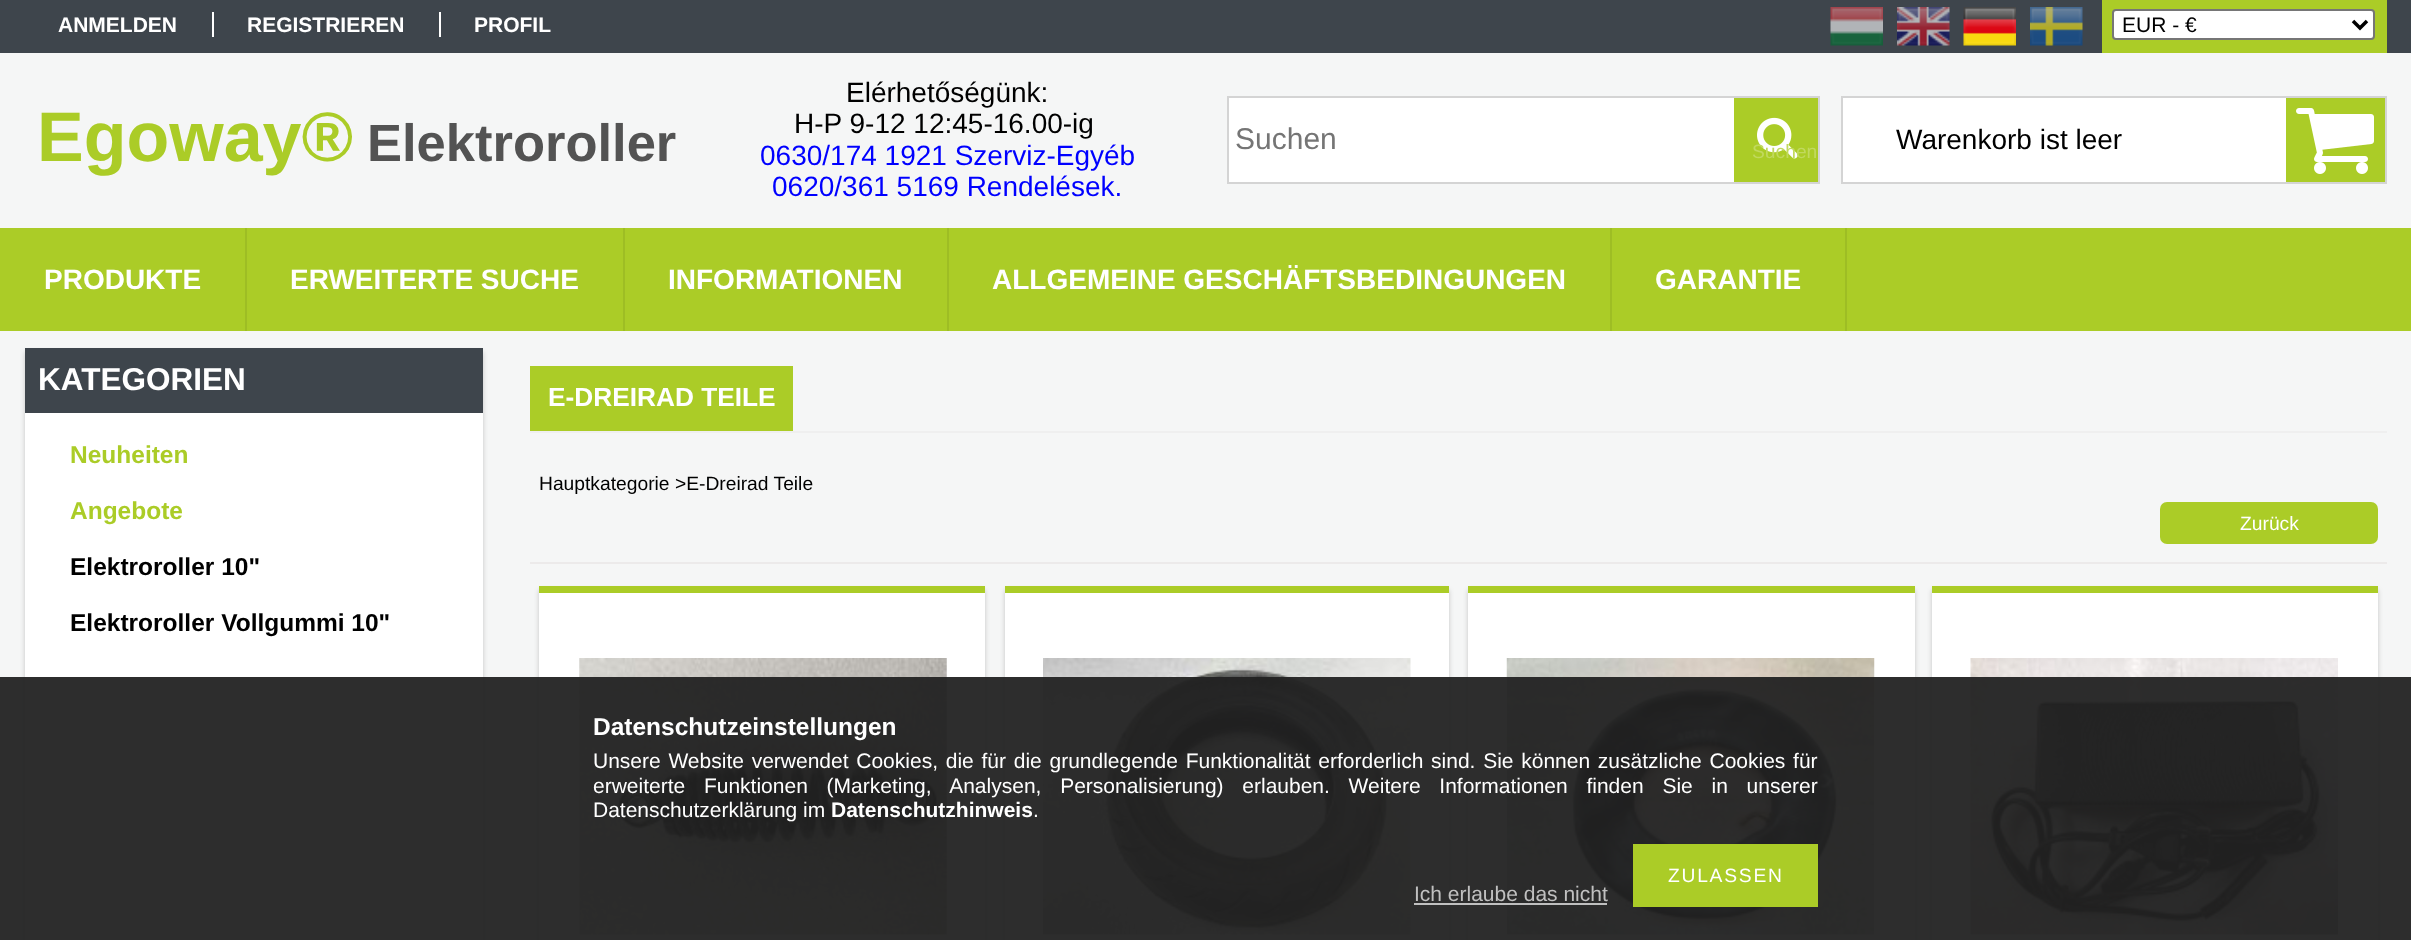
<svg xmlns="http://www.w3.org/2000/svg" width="2411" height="940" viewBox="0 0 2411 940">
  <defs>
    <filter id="blur1" x="-50%" y="-200%" width="200%" height="500%"><feGaussianBlur stdDeviation="2.5"/></filter>
  </defs>
  <rect width="100%" height="100%" fill="#f5f6f6"/>
  <rect x="0" y="0" width="2411" height="53" fill="#3e454c"/>
  <text x="58" y="32" font-family="Liberation Sans" font-size="21" font-weight="bold" fill="#ffffff">ANMELDEN</text>
  <rect x="212" y="12" width="2" height="25" fill="#ffffff"/>
  <text x="247" y="32" font-family="Liberation Sans" font-size="21" font-weight="bold" fill="#ffffff">REGISTRIEREN</text>
  <rect x="439" y="12" width="2" height="25" fill="#ffffff"/>
  <text x="474" y="32" font-family="Liberation Sans" font-size="21" font-weight="bold" fill="#ffffff">PROFIL</text>
  <image x="1830" y="7" width="53" height="39" href="img1.png"/>
  <image x="1897" y="7" width="53" height="39" href="img2.png"/>
  <image x="1963" y="7" width="53" height="39" href="img3.png"/>
  <image x="2030" y="7" width="53" height="39" href="img4.png"/>
  <rect x="2102" y="0" width="285" height="53" fill="#abcc27"/>
  <rect x="2113" y="10" width="261" height="29" rx="3" fill="#ffffff" stroke="#767676" stroke-width="2"/>
  <path d="M2353 21L2360 28L2367 21" fill="none" stroke="#000000" stroke-width="3.5"/>
  <text x="2122" y="32" font-family="Liberation Sans" font-size="21" fill="#000000">EUR - €</text>
  <text x="37" y="161" font-family="Liberation Sans" font-size="70" font-weight="bold" fill="#abcc27">Egoway®</text>
  <text x="367" y="161" font-family="Liberation Sans" font-size="52.5" font-weight="bold" fill="#535353">Elektroroller</text>
  <text x="846" y="102" font-family="Liberation Sans" font-size="28" fill="#000000">Elérhetőségünk:</text>
  <text x="794" y="133" font-family="Liberation Sans" font-size="28" fill="#000000">H-P 9-12 12:45-16.00-ig</text>
  <text x="760" y="165" font-family="Liberation Sans" font-size="28" fill="#0000ff">0630/174 1921 Szerviz-Egyéb</text>
  <text x="772" y="196" font-family="Liberation Sans" font-size="28" fill="#0000ff">0620/361 5169 Rendelések.</text>
  <rect x="1229" y="98" width="505" height="84" fill="#ffffff"/>
  <rect x="1228" y="97" width="591" height="86" fill="none" stroke="#d4d4d4" stroke-width="2"/>
  <text x="1235" y="149" font-family="Liberation Sans" font-size="30" fill="#757575">Suchen</text>
  <rect x="1734" y="98" width="84" height="84" fill="#abcc27"/>
  <image x="1757" y="117" width="41" height="42" href="img5.png"/>
  <text x="1752" y="158" font-family="Liberation Sans" font-size="19.25" fill="#c1d95e">Suchen</text>
  <rect x="1843" y="98" width="443" height="84" fill="#ffffff"/>
  <rect x="1842" y="97" width="544" height="86" fill="none" stroke="#d4d4d4" stroke-width="2"/>
  <text x="1896" y="149" font-family="Liberation Sans" font-size="28" fill="#000000">Warenkorb ist leer</text>
  <rect x="2286" y="98" width="99" height="84" fill="#abcc27"/>
  <image x="2296" y="108" width="78" height="66" href="img6.png"/>
  <rect x="0" y="228" width="2411" height="103" fill="#abcc27"/>
  <rect x="245" y="228" width="2" height="103" fill="#000000" fill-opacity="0.07"/>
  <text x="44" y="289" font-family="Liberation Sans" font-size="28" font-weight="bold" fill="#ffffff">PRODUKTE</text>
  <rect x="623" y="228" width="2" height="103" fill="#000000" fill-opacity="0.07"/>
  <text x="290" y="289" font-family="Liberation Sans" font-size="28" font-weight="bold" fill="#ffffff">ERWEITERTE SUCHE</text>
  <rect x="947" y="228" width="2" height="103" fill="#000000" fill-opacity="0.07"/>
  <text x="668" y="289" font-family="Liberation Sans" font-size="28" font-weight="bold" fill="#ffffff">INFORMATIONEN</text>
  <rect x="1610" y="228" width="2" height="103" fill="#000000" fill-opacity="0.07"/>
  <text x="992" y="289" font-family="Liberation Sans" font-size="28" font-weight="bold" fill="#ffffff">ALLGEMEINE GESCHÄFTSBEDINGUNGEN</text>
  <rect x="1845" y="228" width="2" height="103" fill="#000000" fill-opacity="0.07"/>
  <text x="1655" y="289" font-family="Liberation Sans" font-size="28" font-weight="bold" fill="#ffffff">GARANTIE</text>
  <rect x="25" y="352" width="458" height="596" fill="#000000" fill-opacity="0.2" filter="url(#blur1)"/>
  <rect x="25" y="348" width="458" height="65" fill="#3e454c"/>
  <text x="38" y="390" font-family="Liberation Sans" font-size="31.5" font-weight="bold" fill="#ffffff">KATEGORIEN</text>
  <rect x="25" y="413" width="458" height="527" fill="#ffffff"/>
  <text x="70" y="463" font-family="Liberation Sans" font-size="24.5" font-weight="bold" fill="#abcc27">Neuheiten</text>
  <text x="70" y="519" font-family="Liberation Sans" font-size="24.5" font-weight="bold" fill="#abcc27">Angebote</text>
  <text x="70" y="575" font-family="Liberation Sans" font-size="24.5" font-weight="bold" fill="#000000">Elektroroller 10"</text>
  <text x="70" y="631" font-family="Liberation Sans" font-size="24.5" font-weight="bold" fill="#000000">Elektroroller Vollgummi 10"</text>
  <rect x="530" y="431" width="1857" height="2" fill="#efefef"/>
  <rect x="530" y="366" width="263" height="65" fill="#abcc27"/>
  <text x="548" y="406" font-family="Liberation Sans" font-size="26.25" font-weight="bold" fill="#ffffff">E-DREIRAD TEILE</text>
  <text x="539" y="490" font-family="Liberation Sans" font-size="19.25" fill="#000000">Hauptkategorie &gt;E-Dreirad Teile</text>
  <rect x="2160" y="502" width="218" height="42" rx="7" fill="#abcc27"/>
  <text x="2240" y="530" font-family="Liberation Sans" font-size="19.25" fill="#ffffff">Zurück</text>
  <rect x="530" y="562" width="1857" height="2" fill="#eceaea"/>
  <rect x="539" y="590" width="446" height="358" fill="#000000" fill-opacity="0.2" filter="url(#blur1)"/>
  <rect x="539" y="586" width="446" height="7" fill="#abcc27"/>
  <rect x="539" y="593" width="446" height="347" fill="#ffffff"/>
  <image x="579" y="658" width="368" height="277" href="img7.png"/>
  <rect x="1005" y="590" width="444" height="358" fill="#000000" fill-opacity="0.2" filter="url(#blur1)"/>
  <rect x="1005" y="586" width="444" height="7" fill="#abcc27"/>
  <rect x="1005" y="593" width="444" height="347" fill="#ffffff"/>
  <image x="1043" y="658" width="368" height="277" href="img8.png"/>
  <rect x="1468" y="590" width="447" height="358" fill="#000000" fill-opacity="0.2" filter="url(#blur1)"/>
  <rect x="1468" y="586" width="447" height="7" fill="#abcc27"/>
  <rect x="1468" y="593" width="447" height="347" fill="#ffffff"/>
  <image x="1506" y="658" width="369" height="277" href="img9.png"/>
  <rect x="1932" y="590" width="446" height="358" fill="#000000" fill-opacity="0.2" filter="url(#blur1)"/>
  <rect x="1932" y="586" width="446" height="7" fill="#abcc27"/>
  <rect x="1932" y="593" width="446" height="347" fill="#ffffff"/>
  <image x="1970" y="658" width="368" height="277" href="img10.png"/>
  <rect x="0" y="677" width="2411" height="263" fill="#222222" fill-opacity="0.95"/>
  <text x="593" y="735" font-family="Liberation Sans" font-size="24.5" font-weight="bold" fill="#ffffff">Datenschutzeinstellungen</text>
  <text x="593" y="768" word-spacing="1.9" font-family="Liberation Sans" font-size="21" fill="#ffffff">Unsere Website verwendet Cookies, die für die grundlegende Funktionalität erforderlich sind. Sie können zusätzliche Cookies für</text>
  <text x="593" y="793" word-spacing="12.9" font-family="Liberation Sans" font-size="21" fill="#ffffff">erweiterte Funktionen (Marketing, Analysen, Personalisierung) erlauben. Weitere Informationen finden Sie in unserer</text>
  <text x="593" y="817" font-family="Liberation Sans" font-size="21" fill="#ffffff">Datenschutzerklärung im</text>
  <text x="831" y="817" font-family="Liberation Sans" font-size="21" font-weight="bold" fill="#ffffff">Datenschutzhinweis</text>
  <text x="1033" y="817" font-family="Liberation Sans" font-size="21" fill="#ffffff">.</text>
  <rect x="1633" y="844" width="185" height="63" fill="#abcc27"/>
  <text x="1668" y="882" font-family="Liberation Sans" font-size="19.25" letter-spacing="1.75" fill="#ffffff">ZULASSEN</text>
  <text x="1414" y="901" font-family="Liberation Sans" font-size="21" fill="#c0c0c0">Ich erlaube das nicht</text>
  <rect x="1414" y="903" width="193" height="2" fill="#ffffff" fill-opacity="0.7"/>
</svg>
